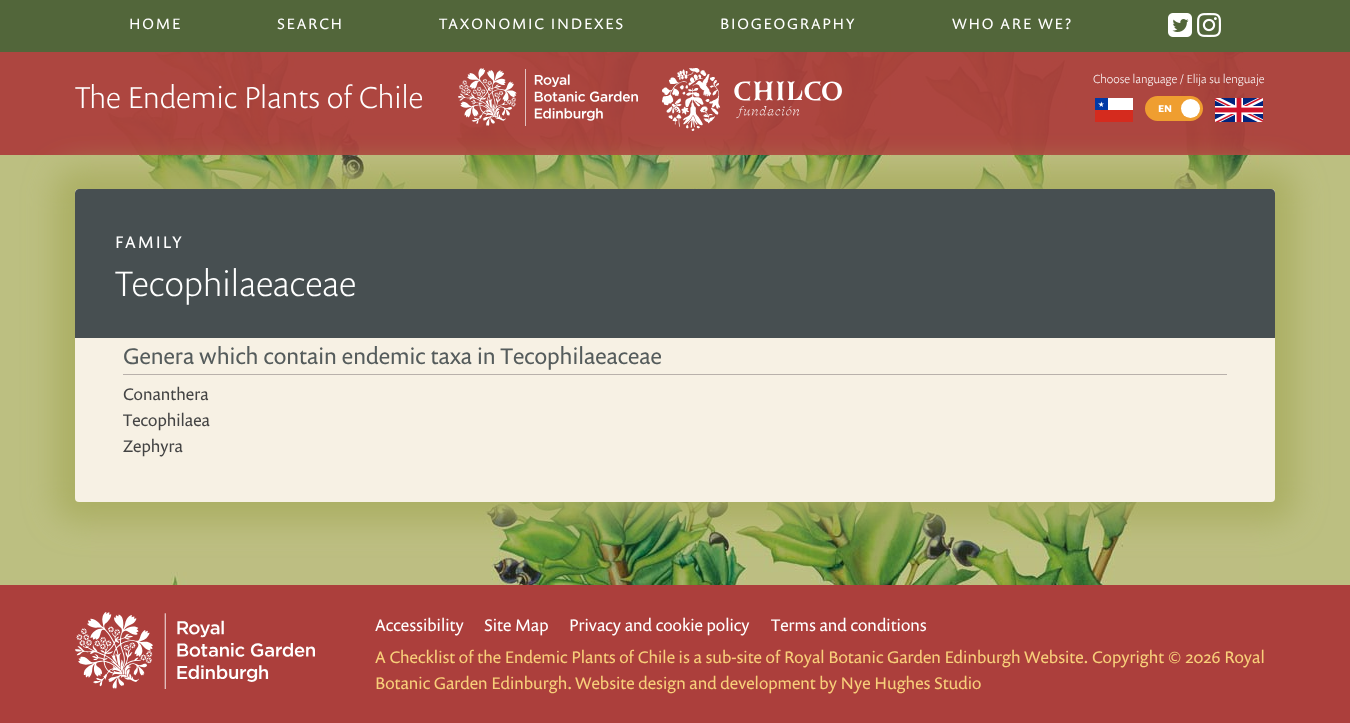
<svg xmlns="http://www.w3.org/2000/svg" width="1350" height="723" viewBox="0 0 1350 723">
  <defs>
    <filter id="blur1" x="-50%" y="-200%" width="200%" height="500%"><feGaussianBlur stdDeviation="15"/></filter>
  </defs>
  <rect width="100%" height="100%" fill="#bcbf81"/>
  <image x="91" y="52" width="1168" height="533" href="img1.png"/>
  <rect x="0" y="0" width="1350" height="52" fill="#52663a"/>
  <text x="129" y="29" font-family="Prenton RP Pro" font-size="15.25" letter-spacing="1.8" fill="#ffffff">HOME</text>
  <text x="277" y="29" font-family="Prenton RP Pro" font-size="15.25" letter-spacing="1.8" fill="#ffffff">SEARCH</text>
  <text x="439" y="29" font-family="Prenton RP Pro" font-size="15.25" letter-spacing="1.8" fill="#ffffff">TAXONOMIC INDEXES</text>
  <text x="720" y="29" font-family="Prenton RP Pro" font-size="15.25" letter-spacing="1.8" fill="#ffffff">BIOGEOGRAPHY</text>
  <text x="952" y="29" font-family="Prenton RP Pro" font-size="15.25" letter-spacing="1.8" fill="#ffffff">WHO ARE WE?</text>
  <image x="1168" y="13" width="24" height="24" href="img2.png"/>
  <image x="1197" y="13" width="24" height="24" href="img3.png"/>
  <rect x="0" y="52" width="1350" height="103" fill="#ac3f3c" fill-opacity="0.95"/>
  <text x="1093" y="83" font-family="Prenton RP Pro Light" font-size="11.9" font-weight="300" fill="#ffffff">Choose language / Elija su lenguaje</text>
  <rect x="1095" y="98" width="13" height="12" fill="#0039a6"/>
  <rect x="1108" y="98" width="25" height="12" fill="#ffffff"/>
  <path d="M1099.5 107L1101.5 101.5L1103 107L1098 103.5H1104" fill="#ffffff"/>
  <rect x="1095" y="110" width="38" height="12" fill="#d52b1e"/>
  <rect x="1146" y="97" width="56" height="23" rx="11.5" fill="#ef9e30" stroke="#ef9e30" stroke-width="2"/>
  <image x="1158" y="105" width="14" height="7" href="img4.png"/>
  <circle cx="1190.5" cy="108.5" r="9.5" fill="#ffffff"/>
  <image x="1215" y="98" width="48" height="24" href="img5.png"/>
  <text x="75" y="108" font-family="Prenton RP Pro Light" font-size="30.6" font-weight="300" fill="#ffffff">The Endemic Plants of Chile</text>
  <image x="458" y="68" width="180" height="58" href="img6.png"/>
  <image x="662" y="68" width="180" height="63" href="img7.png"/>
  <rect x="55" y="169" width="1240" height="353" rx="24" fill="#aaae5f" fill-opacity="0.9" filter="url(#blur1)"/>
  <rect x="75" y="189" width="1200" height="313" rx="4" fill="#f7f1e4"/>
  <path d="M79 189H1271C1273 189 1275 191 1275 193V338H75V193C75 191 77 189 79 189Z" fill="#474f51"/>
  <text x="115" y="248" font-family="Prenton RP Pro" font-size="17" letter-spacing="2" fill="#ffffff">FAMILY</text>
  <text x="115" y="296" font-family="Prenton RP Pro Light" font-size="35.75" font-weight="300" fill="#ffffff">Tecophilaeaceae</text>
  <rect x="123" y="374" width="1104" height="1" fill="#b9b1ab"/>
  <text x="123" y="364" font-family="Prenton RP Pro" font-size="22.95" fill="#555c5c">Genera which contain endemic taxa in Tecophilaeaceae</text>
  <text x="123" y="400" font-family="Prenton RP Pro" font-size="17" fill="#444444">Conanthera</text>
  <text x="123" y="426" font-family="Prenton RP Pro" font-size="17" fill="#444444">Tecophilaea</text>
  <text x="123" y="452" font-family="Prenton RP Pro" font-size="17" fill="#444444">Zephyra</text>
  <rect x="0" y="585" width="1350" height="138" fill="#ac3f3c"/>
  <image x="75" y="612" width="240" height="77" href="img8.png"/>
  <text x="375" y="631" font-family="Prenton RP Pro" font-size="17" fill="#ffffff">Accessibility</text>
  <text x="484" y="631" font-family="Prenton RP Pro" font-size="17" fill="#ffffff">Site Map</text>
  <text x="569" y="631" font-family="Prenton RP Pro" font-size="17" fill="#ffffff">Privacy and cookie policy</text>
  <text x="771" y="631" font-family="Prenton RP Pro" font-size="17" fill="#ffffff">Terms and conditions</text>
  <text x="375" y="663" font-family="Prenton RP Pro" font-size="17" fill="#f8cf7a">A Checklist of the Endemic Plants of Chile is a sub-site of</text>
  <text x="784" y="663" font-family="Prenton RP Pro" font-size="17" fill="#f8cf7a">Royal Botanic Garden Edinburgh Website.</text>
  <text x="1092" y="663" font-family="Prenton RP Pro" font-size="17" fill="#f8cf7a">Copyright © 2026 Royal</text>
  <text x="375" y="689" font-family="Prenton RP Pro" font-size="17" fill="#f8cf7a">Botanic Garden Edinburgh. Website design and development by Nye Hughes Studio</text>
</svg>
